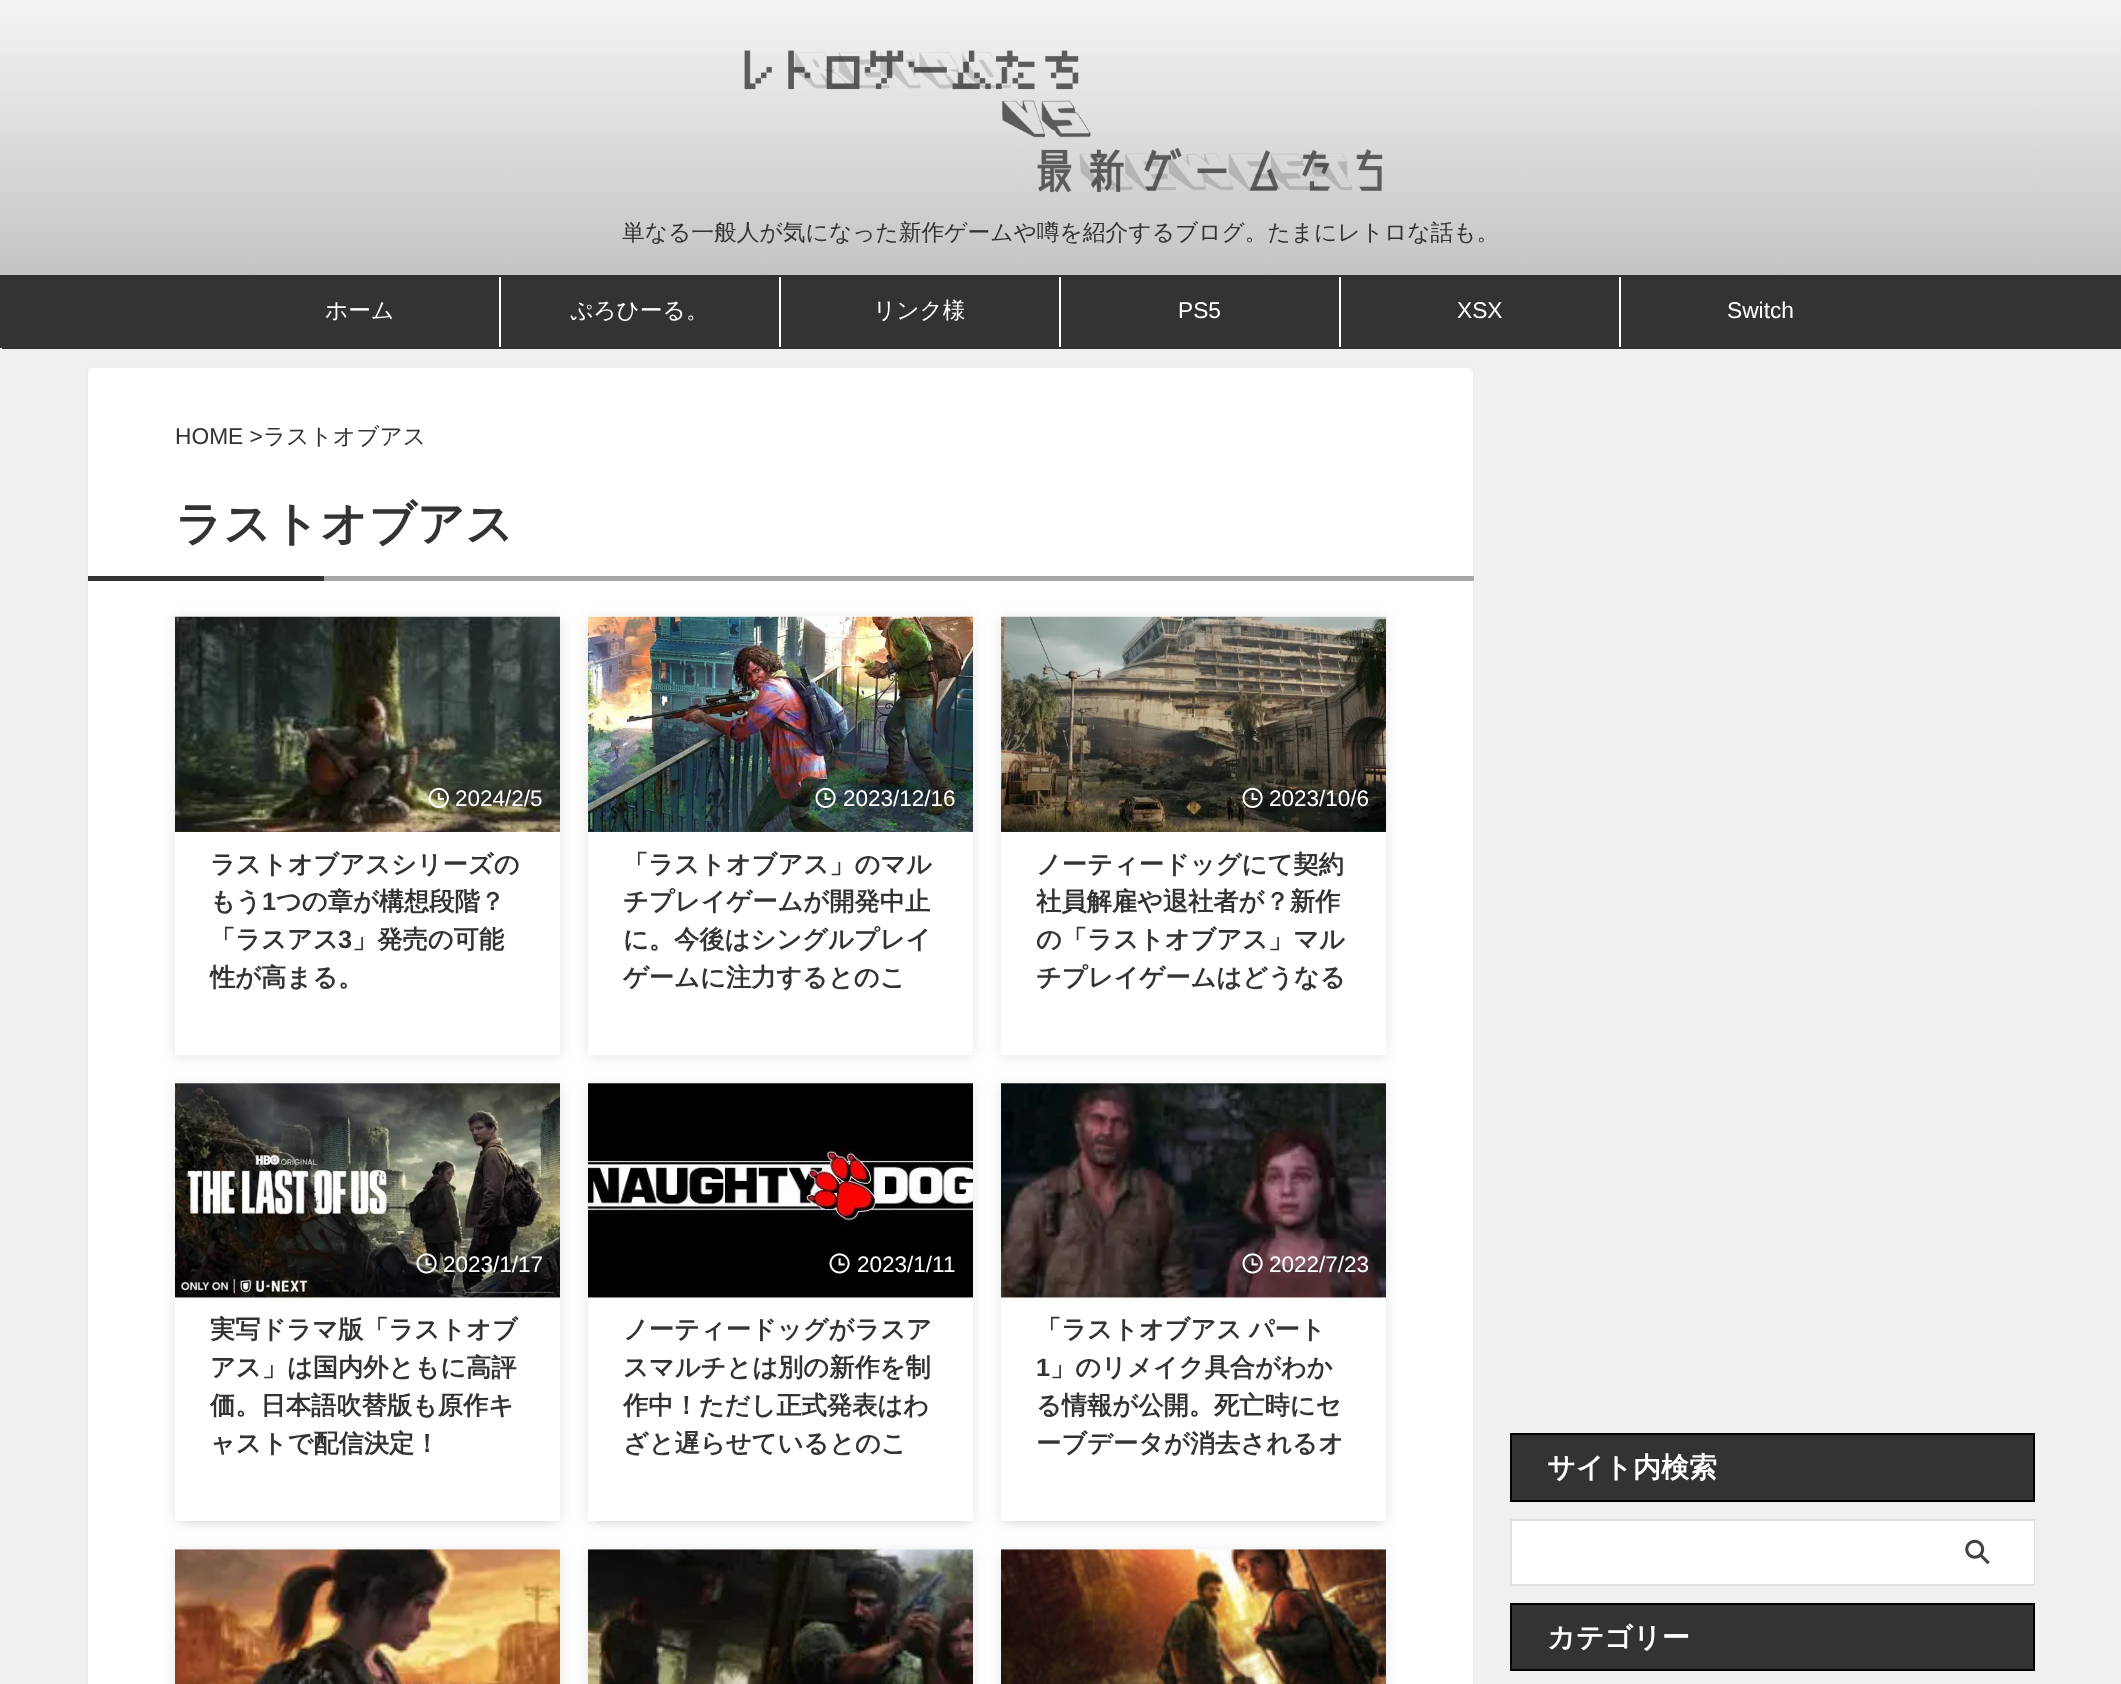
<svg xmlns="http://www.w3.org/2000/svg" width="2121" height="1684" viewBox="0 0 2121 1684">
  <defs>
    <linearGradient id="g1" gradientUnits="userSpaceOnUse" x1="1061" y1="0" x2="1061" y2="275"><stop offset="0" stop-color="#f4f4f4"/><stop offset="1" stop-color="#c4c4c4"/></linearGradient>
    <clipPath id="clip1"><path d="M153 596H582V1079H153ZM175 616H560V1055H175Z" clip-rule="evenodd"/></clipPath>
    <filter id="blur1" x="-50%" y="-200%" width="200%" height="500%"><feGaussianBlur stdDeviation="7"/></filter>
    <linearGradient id="g2" gradientUnits="userSpaceOnUse" x1="368" y1="987" x2="368" y2="1020"><stop offset="0" stop-color="#ffffff" stop-opacity="0"/><stop offset="1" stop-color="#ffffff"/></linearGradient>
    <clipPath id="clip2"><path d="M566 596H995V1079H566ZM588 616H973V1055H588Z" clip-rule="evenodd"/></clipPath>
    <linearGradient id="g3" gradientUnits="userSpaceOnUse" x1="781" y1="987" x2="781" y2="1020"><stop offset="0" stop-color="#ffffff" stop-opacity="0"/><stop offset="1" stop-color="#ffffff"/></linearGradient>
    <clipPath id="clip3"><path d="M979 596H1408V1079H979ZM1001 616H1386V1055H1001Z" clip-rule="evenodd"/></clipPath>
    <linearGradient id="g4" gradientUnits="userSpaceOnUse" x1="1194" y1="987" x2="1194" y2="1020"><stop offset="0" stop-color="#ffffff" stop-opacity="0"/><stop offset="1" stop-color="#ffffff"/></linearGradient>
    <filter id="blur2" x="-50%" y="-200%" width="200%" height="500%"><feGaussianBlur stdDeviation="3.5"/></filter>
    <linearGradient id="g5" gradientUnits="userSpaceOnUse" x1="368" y1="1453" x2="368" y2="1486"><stop offset="0" stop-color="#ffffff" stop-opacity="0"/><stop offset="1" stop-color="#ffffff"/></linearGradient>
    <linearGradient id="g6" gradientUnits="userSpaceOnUse" x1="781" y1="1453" x2="781" y2="1486"><stop offset="0" stop-color="#ffffff" stop-opacity="0"/><stop offset="1" stop-color="#ffffff"/></linearGradient>
    <linearGradient id="g7" gradientUnits="userSpaceOnUse" x1="1194" y1="1453" x2="1194" y2="1486"><stop offset="0" stop-color="#ffffff" stop-opacity="0"/><stop offset="1" stop-color="#ffffff"/></linearGradient>
  </defs>
  <rect width="100%" height="100%" fill="#f0f0f0"/>
  <rect x="0" y="275" width="2121" height="73" fill="#333333"/>
  <rect x="0" y="0" width="2121" height="275" fill="url(#g1)"/>
  <image x="744" y="50" width="639" height="143" href="img1.png"/>
  <text x="622" y="240" font-family="WenQuanYi Zen Hei" font-size="22.75" font-weight="500" fill="#333333">単なる一般人が気になった新作ゲームや噂を紹介するブログ。たまにレトロな話も。</text>
  <rect x="2" y="348" width="2119" height="1" fill="#333333"/>
  <rect x="499" y="277" width="2" height="70" fill="#ffffff"/>
  <text x="325" y="318" font-family="WenQuanYi Zen Hei" font-size="22.75" font-weight="500" fill="#ffffff">ホーム</text>
  <rect x="779" y="277" width="2" height="70" fill="#ffffff"/>
  <text x="570" y="318" font-family="WenQuanYi Zen Hei" font-size="22.75" font-weight="500" fill="#ffffff">ぷろひーる。</text>
  <rect x="1059" y="277" width="2" height="70" fill="#ffffff"/>
  <text x="873" y="318" font-family="WenQuanYi Zen Hei" font-size="22.75" font-weight="500" fill="#ffffff">リンク様</text>
  <rect x="1339" y="277" width="2" height="70" fill="#ffffff"/>
  <text x="1178" y="318" font-family="Liberation Sans" font-size="22.75" fill="#ffffff">PS5</text>
  <rect x="1619" y="277" width="2" height="70" fill="#ffffff"/>
  <text x="1457" y="318" font-family="Liberation Sans" font-size="22.75" fill="#ffffff">XSX</text>
  <text x="1727" y="318" font-family="Liberation Sans" font-size="22.75" fill="#ffffff">Switch</text>
  <rect x="87" y="367" width="1387" height="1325" rx="6" fill="#ffffff" stroke="#eeeeee" stroke-width="2"/>
  <text x="175" y="444" font-family="Liberation Sans" font-size="22.75" fill="#333333">HOME &gt;</text>
  <text x="263" y="444" font-family="WenQuanYi Zen Hei" font-size="22.75" font-weight="500" fill="#333333">ラストオブアス</text>
  <rect x="324" y="576" width="1150" height="5" fill="#a8a8a8"/>
  <text x="175" y="540" font-family="WenQuanYi Zen Hei" font-size="47.25" font-weight="bold" fill="#333333">ラストオブアス</text>
  <rect x="88" y="576" width="236" height="5" fill="#333333"/>
  <g clip-path="url(#clip1)">
    <rect x="175" y="618" width="385" height="439" fill="#000000" fill-opacity="0.1" filter="url(#blur1)"/>
  </g>
  <image x="175" y="616" width="385" height="216" href="img2.png"/>
  <image x="428" y="787" width="21" height="21" href="img3.png"/>
  <text x="455" y="806" font-family="Liberation Sans" font-size="22.5" fill="#ffffff">2024/2/5</text>
  <text x="210" y="873" font-family="WenQuanYi Zen Hei" font-size="25.25" font-weight="bold" fill="#333333">ラストオブアスシリーズの</text>
  <text x="210" y="910" font-family="WenQuanYi Zen Hei" font-size="25.25" font-weight="bold" fill="#333333">もう</text>
  <text x="262" y="910" font-family="Liberation Sans" font-size="25.25" font-weight="bold" fill="#333333">1</text>
  <text x="276" y="910" font-family="WenQuanYi Zen Hei" font-size="25.25" font-weight="bold" fill="#333333">つの章が構想段階？</text>
  <text x="210" y="948" font-family="WenQuanYi Zen Hei" font-size="25.25" font-weight="bold" fill="#333333">「ラスアス</text>
  <text x="338" y="948" font-family="Liberation Sans" font-size="25.25" font-weight="bold" fill="#333333">3</text>
  <text x="352" y="948" font-family="WenQuanYi Zen Hei" font-size="25.25" font-weight="bold" fill="#333333">」発売の可能</text>
  <text x="210" y="986" font-family="WenQuanYi Zen Hei" font-size="25.25" font-weight="bold" fill="#333333">性が高まる。</text>
  <rect x="213" y="988" width="132" height="2" fill="url(#g2)"/>
  <g clip-path="url(#clip2)">
    <rect x="588" y="618" width="385" height="439" fill="#000000" fill-opacity="0.1" filter="url(#blur1)"/>
  </g>
  <image x="588" y="616" width="385" height="216" href="img4.png"/>
  <image x="815" y="787" width="21" height="21" href="img5.png"/>
  <text x="843" y="806" font-family="Liberation Sans" font-size="22.5" fill="#ffffff">2023/12/16</text>
  <text x="623" y="873" font-family="WenQuanYi Zen Hei" font-size="25.25" font-weight="bold" fill="#333333">「ラストオブアス」のマル</text>
  <text x="623" y="910" font-family="WenQuanYi Zen Hei" font-size="25.25" font-weight="bold" fill="#333333">チプレイゲームが開発中止</text>
  <text x="623" y="948" font-family="WenQuanYi Zen Hei" font-size="25.25" font-weight="bold" fill="#333333">に。今後はシングルプレイ</text>
  <text x="623" y="986" font-family="WenQuanYi Zen Hei" font-size="25.25" font-weight="bold" fill="#333333">ゲームに注力するとのこ</text>
  <rect x="630" y="988" width="217" height="3" fill="url(#g3)"/>
  <g clip-path="url(#clip3)">
    <rect x="1001" y="618" width="385" height="439" fill="#000000" fill-opacity="0.1" filter="url(#blur1)"/>
  </g>
  <image x="1001" y="616" width="385" height="216" href="img6.png"/>
  <image x="1242" y="787" width="21" height="21" href="img7.png"/>
  <text x="1269" y="806" font-family="Liberation Sans" font-size="22.5" fill="#ffffff">2023/10/6</text>
  <text x="1036" y="873" font-family="WenQuanYi Zen Hei" font-size="25.25" font-weight="bold" fill="#333333">ノーティードッグにて契約</text>
  <text x="1036" y="910" font-family="WenQuanYi Zen Hei" font-size="25.25" font-weight="bold" fill="#333333">社員解雇や退社者が？新作</text>
  <text x="1036" y="948" font-family="WenQuanYi Zen Hei" font-size="25.25" font-weight="bold" fill="#333333">の「ラストオブアス」マル</text>
  <text x="1036" y="986" font-family="WenQuanYi Zen Hei" font-size="25.25" font-weight="bold" fill="#333333">チプレイゲームはどうなる</text>
  <rect x="1041" y="988" width="295" height="3" fill="url(#g4)"/>
  <rect x="182" y="1097" width="371" height="424" fill="#000000" fill-opacity="0.1" filter="url(#blur2)"/>
  <rect x="175" y="1085" width="385" height="438" fill="#000000" fill-opacity="0.1" filter="url(#blur1)"/>
  <rect x="175" y="1083" width="385" height="438" fill="#ffffff"/>
  <image x="175" y="1083" width="385" height="215" href="img8.png"/>
  <image x="416" y="1253" width="21" height="21" href="img9.png"/>
  <text x="443" y="1272" font-family="Liberation Sans" font-size="22.5" fill="#ffffff">2023/1/17</text>
  <text x="210" y="1338" font-family="WenQuanYi Zen Hei" font-size="25.25" font-weight="bold" fill="#333333">実写ドラマ版「ラストオブ</text>
  <text x="210" y="1376" font-family="WenQuanYi Zen Hei" font-size="25.25" font-weight="bold" fill="#333333">アス」は国内外ともに高評</text>
  <text x="210" y="1414" font-family="WenQuanYi Zen Hei" font-size="25.25" font-weight="bold" fill="#333333">価。日本語吹替版も原作キ</text>
  <text x="210" y="1452" font-family="WenQuanYi Zen Hei" font-size="25.25" font-weight="bold" fill="#333333">ャストで配信決定！</text>
  <rect x="221" y="1454" width="191" height="2" fill="url(#g5)"/>
  <rect x="595" y="1097" width="371" height="424" fill="#000000" fill-opacity="0.1" filter="url(#blur2)"/>
  <rect x="588" y="1085" width="385" height="438" fill="#000000" fill-opacity="0.1" filter="url(#blur1)"/>
  <rect x="588" y="1083" width="385" height="438" fill="#ffffff"/>
  <image x="588" y="1083" width="385" height="215" href="img10.png"/>
  <image x="829" y="1253" width="21" height="21" href="img11.png"/>
  <text x="857" y="1272" font-family="Liberation Sans" font-size="22.5" fill="#ffffff">2023/1/11</text>
  <text x="623" y="1338" font-family="WenQuanYi Zen Hei" font-size="25.25" font-weight="bold" fill="#333333">ノーティードッグがラスア</text>
  <text x="623" y="1376" font-family="WenQuanYi Zen Hei" font-size="25.25" font-weight="bold" fill="#333333">スマルチとは別の新作を制</text>
  <text x="623" y="1414" font-family="WenQuanYi Zen Hei" font-size="25.25" font-weight="bold" fill="#333333">作中！ただし正式発表はわ</text>
  <text x="623" y="1452" font-family="WenQuanYi Zen Hei" font-size="25.25" font-weight="bold" fill="#333333">ざと遅らせているとのこ</text>
  <rect x="629" y="1454" width="219" height="2" fill="url(#g6)"/>
  <rect x="1008" y="1097" width="371" height="424" fill="#000000" fill-opacity="0.1" filter="url(#blur2)"/>
  <rect x="1001" y="1085" width="385" height="438" fill="#000000" fill-opacity="0.1" filter="url(#blur1)"/>
  <rect x="1001" y="1083" width="385" height="438" fill="#ffffff"/>
  <image x="1001" y="1083" width="385" height="215" href="img12.png"/>
  <image x="1242" y="1253" width="21" height="21" href="img13.png"/>
  <text x="1269" y="1272" font-family="Liberation Sans" font-size="22.5" fill="#ffffff">2022/7/23</text>
  <text x="1036" y="1338" word-spacing="-1" font-family="WenQuanYi Zen Hei" font-size="25.25" font-weight="bold" fill="#333333">「ラストオブアス パート</text>
  <text x="1036" y="1376" font-family="Liberation Sans" font-size="25.25" font-weight="bold" fill="#333333">1</text>
  <text x="1050" y="1376" font-family="WenQuanYi Zen Hei" font-size="25.25" font-weight="bold" fill="#333333">」のリメイク具合がわか</text>
  <text x="1036" y="1414" font-family="WenQuanYi Zen Hei" font-size="25.25" font-weight="bold" fill="#333333">る情報が公開。死亡時にセ</text>
  <text x="1036" y="1452" font-family="WenQuanYi Zen Hei" font-size="25.25" font-weight="bold" fill="#333333">ーブデータが消去されるオ</text>
  <rect x="1067" y="1454" width="265" height="2" fill="url(#g7)"/>
  <rect x="175" y="1551" width="385" height="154" fill="#000000" fill-opacity="0.1" filter="url(#blur1)"/>
  <image x="175" y="1549" width="385" height="135" href="img14.png"/>
  <rect x="588" y="1551" width="385" height="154" fill="#000000" fill-opacity="0.1" filter="url(#blur1)"/>
  <image x="588" y="1549" width="385" height="135" href="img15.png"/>
  <rect x="1001" y="1551" width="385" height="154" fill="#000000" fill-opacity="0.1" filter="url(#blur1)"/>
  <image x="1001" y="1549" width="385" height="135" href="img16.png"/>
  <rect x="1511" y="1434" width="523" height="67" fill="#333333" stroke="#000000" stroke-width="2"/>
  <text x="1547" y="1477" font-family="WenQuanYi Zen Hei" font-size="28" font-weight="bold" fill="#ffffff">サイト内検索</text>
  <rect x="1511" y="1520" width="523" height="65" fill="none" stroke="#e0e0e0" stroke-width="2"/>
  <rect x="1512" y="1521" width="522" height="63" fill="#ffffff"/>
  <image x="1965" y="1539" width="25" height="26" href="img17.png"/>
  <rect x="1511" y="1604" width="523" height="66" fill="#333333" stroke="#000000" stroke-width="2"/>
  <text x="1547" y="1647" font-family="WenQuanYi Zen Hei" font-size="28" font-weight="bold" fill="#ffffff">カテゴリー</text>
</svg>
